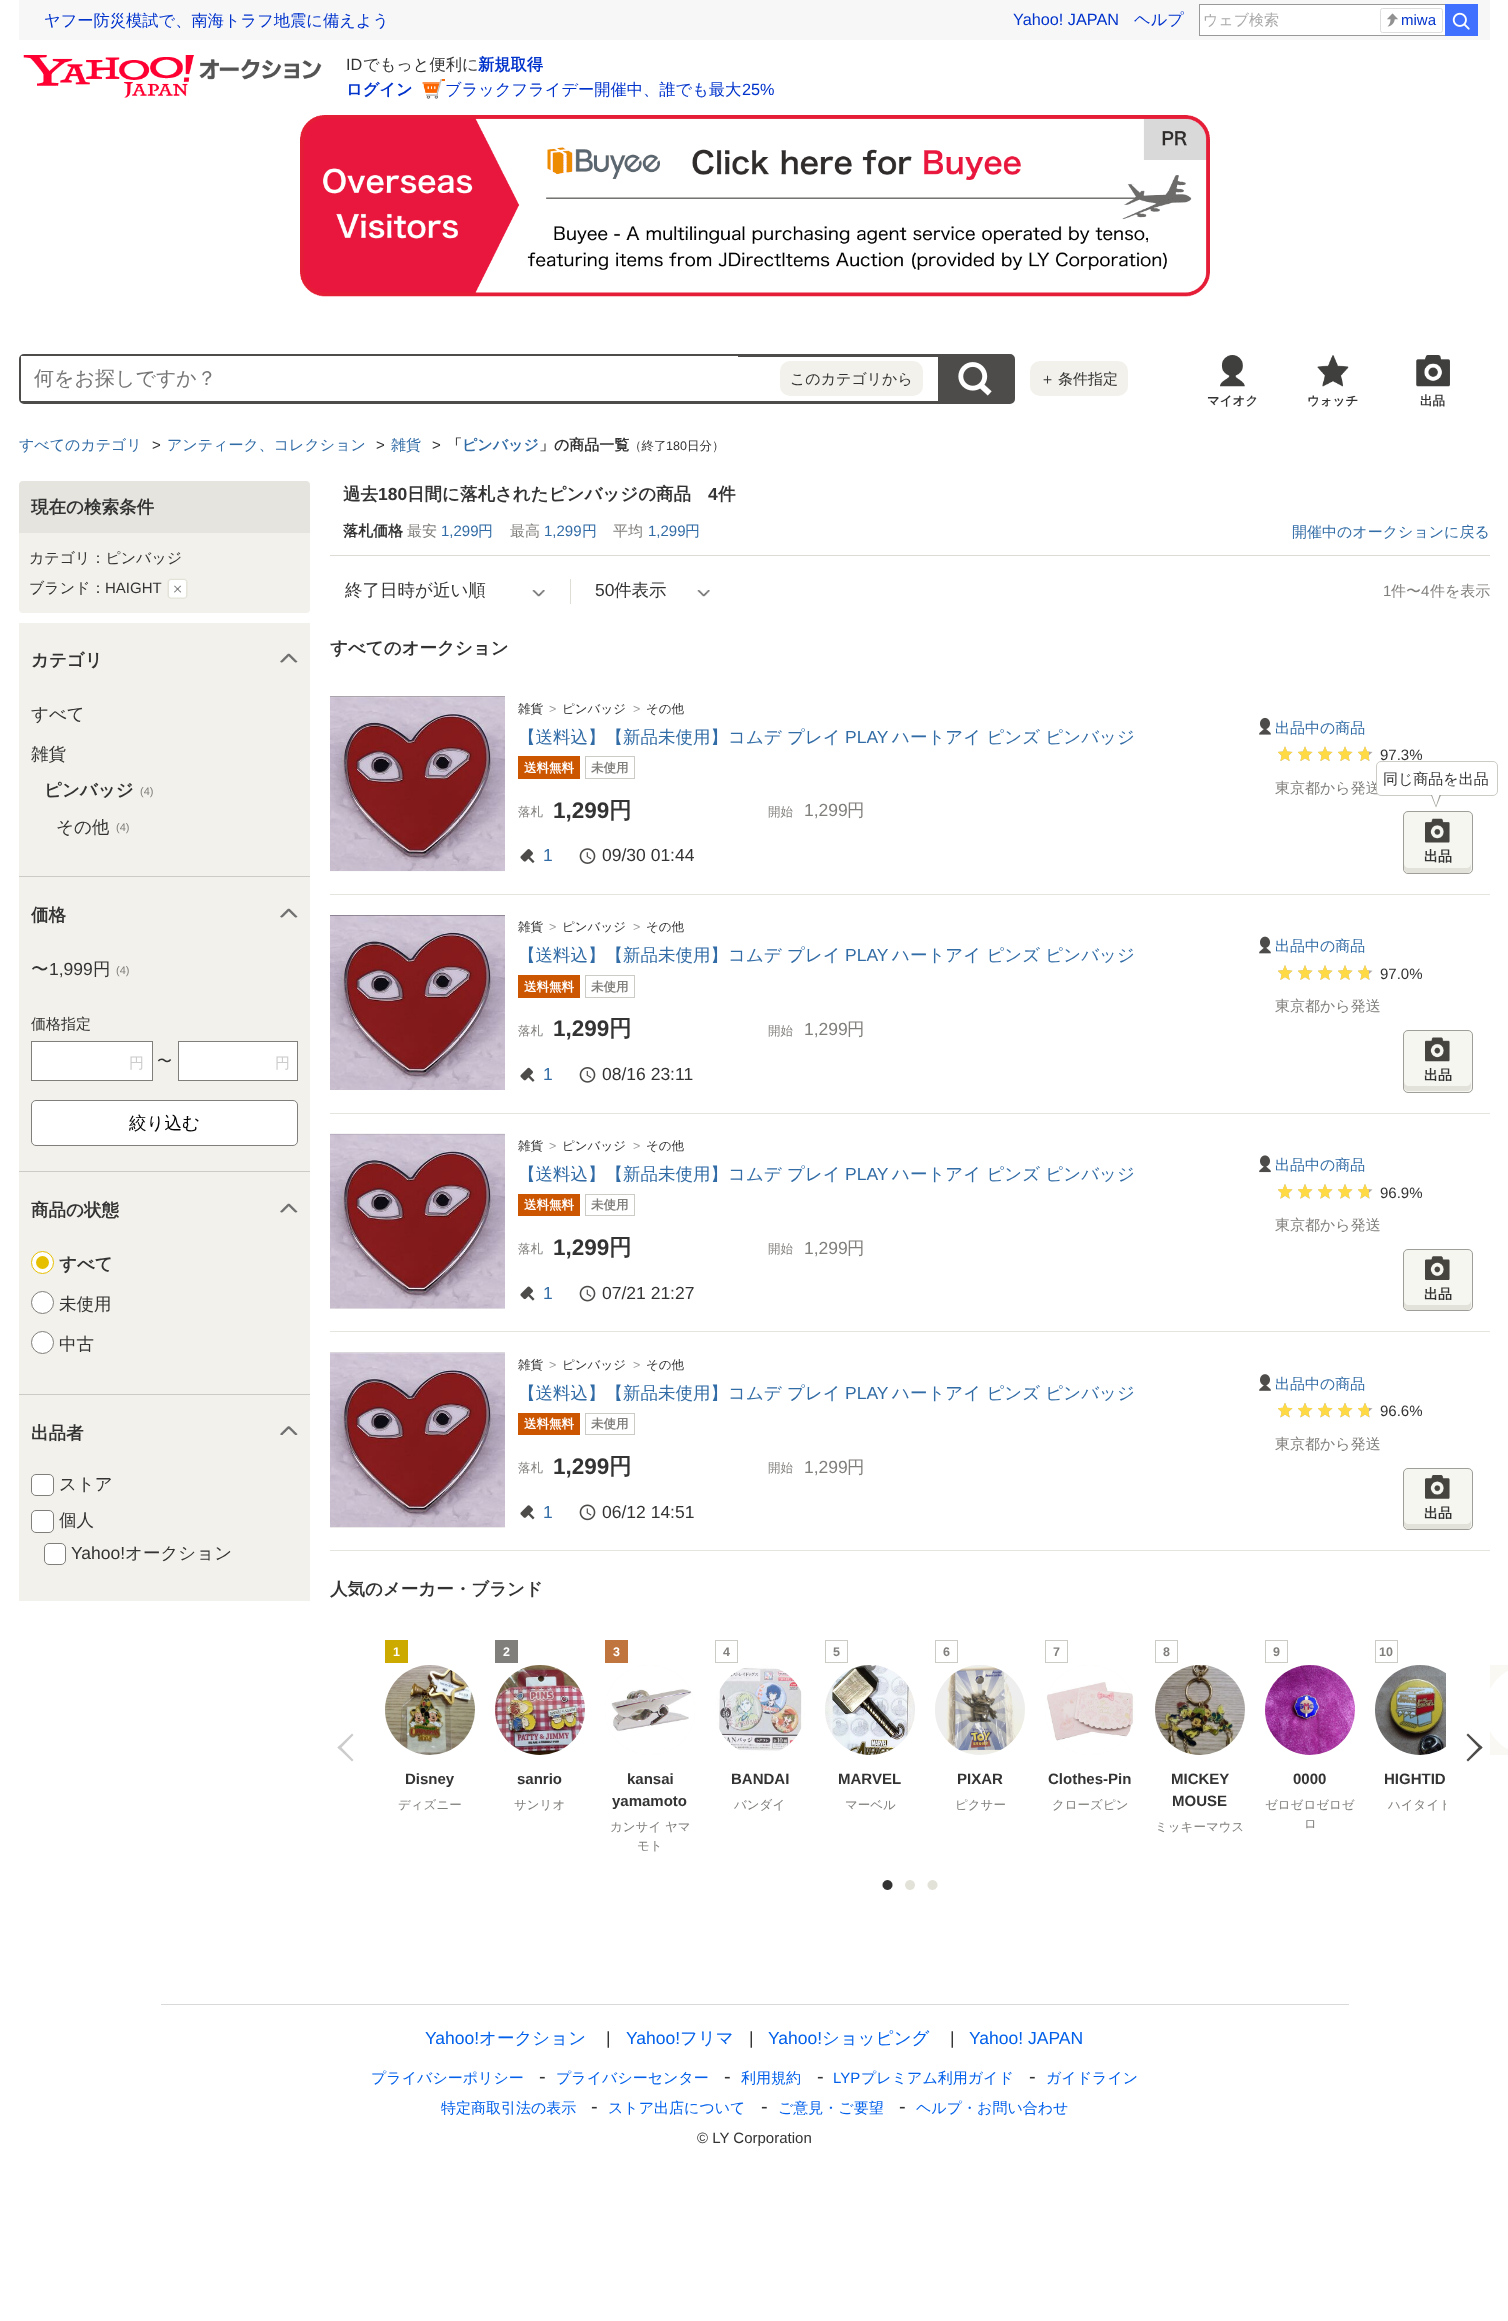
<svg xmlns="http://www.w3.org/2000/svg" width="1508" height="2321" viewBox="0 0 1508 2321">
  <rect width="100%" height="100%" fill="#ffffff"/>
  <rect x="19" y="0" width="1471" height="40" fill="#f7f7f8"/>
  <text x="44" y="26" font-family="WenQuanYi Zen Hei" font-size="16.25" font-weight="500" fill="#0033cc">ヤフー防災模試で、南海トラフ地震に備えよう</text>
  <text x="1013" y="25" font-family="Liberation Sans" font-size="16.25" fill="#0033cc">Yahoo! JAPAN</text>
  <text x="1134" y="25" font-family="WenQuanYi Zen Hei" font-size="16.25" font-weight="500" fill="#0033cc">ヘルプ</text>
  <rect x="1200" y="5" width="245" height="30" fill="#ffffff"/>
  <rect x="1199" y="4" width="246" height="1" fill="#999999"/>
  <rect x="1199" y="35" width="246" height="1" fill="#999999"/>
  <rect x="1199" y="4" width="1" height="32" fill="#999999"/>
  <text x="1203" y="25" font-family="WenQuanYi Zen Hei" font-size="15" font-weight="500" fill="#a9a9a9">ウェブ検索</text>
  <rect x="1380.5" y="8.5" width="62" height="24" rx="2" fill="none" stroke="#dddddd"/>
  <image x="1387" y="13" width="11" height="14" href="img1.png"/>
  <text x="1401" y="25" font-family="Liberation Sans" font-size="15" fill="#0033cc">miwa</text>
  <rect x="1445" y="4" width="33" height="32" fill="#4070ff"/>
  <image x="1452" y="12" width="18" height="18" href="img2.png"/>
  <image x="23" y="55" width="299" height="43" href="img3.png"/>
  <text x="346" y="70" font-family="Liberation Sans" font-size="16.25" fill="#333333">ID</text>
  <text x="363" y="70" font-family="WenQuanYi Zen Hei" font-size="16.25" font-weight="500" fill="#333333">でもっと便利に</text>
  <text x="478" y="70" font-family="WenQuanYi Zen Hei" font-size="16.25" font-weight="bold" fill="#0033cc">新規取得</text>
  <text x="346" y="95" font-family="WenQuanYi Zen Hei" font-size="16.25" font-weight="bold" fill="#0033cc">ログイン</text>
  <image x="422" y="79" width="23" height="20" href="img4.png"/>
  <text x="445" y="95" font-family="WenQuanYi Zen Hei" font-size="16.25" font-weight="500" fill="#0033cc">ブラックフライデー開催中、誰でも最大</text>
  <text x="742" y="95" font-family="Liberation Sans" font-size="16.25" fill="#0033cc">25%</text>
  <image x="300" y="115" width="910" height="182" href="img5.png"/>
  <rect x="20.5" y="355.5" width="993" height="47" rx="3.5" fill="none" stroke="#4d4c4a" stroke-width="3"/>
  <rect x="21" y="356" width="717" height="45" fill="#ffffff"/>
  <text x="34" y="385" font-family="WenQuanYi Zen Hei" font-size="20" font-weight="500" fill="#757575">何をお探しですか？</text>
  <rect x="780" y="361" width="143" height="35" rx="10" fill="#f2f1eb"/>
  <text x="790" y="384" font-family="WenQuanYi Zen Hei" font-size="15" font-weight="500" fill="#333333">このカテゴリから</text>
  <rect x="938" y="357" width="74" height="44" fill="#4d4c4a"/>
  <image x="958" y="362" width="34" height="34" href="img6.png"/>
  <rect x="1030" y="361" width="98" height="35" rx="10" fill="#f2f1eb"/>
  <text x="1040" y="384" font-family="WenQuanYi Zen Hei" font-size="15" font-weight="500" fill="#333333">＋</text>
  <text x="1058" y="384" font-family="WenQuanYi Zen Hei" font-size="15" font-weight="500" fill="#333333">条件指定</text>
  <image x="1220" y="355" width="25" height="32" href="img7.png"/>
  <text x="1207" y="405" font-family="WenQuanYi Zen Hei" font-size="12.5" font-weight="bold" fill="#333333">マイオク</text>
  <image x="1317" y="355" width="32" height="32" href="img8.png"/>
  <text x="1307" y="405" font-family="WenQuanYi Zen Hei" font-size="12.5" font-weight="bold" fill="#333333">ウォッチ</text>
  <image x="1416" y="355" width="34" height="32" href="img9.png"/>
  <text x="1420" y="405" font-family="WenQuanYi Zen Hei" font-size="12.5" font-weight="bold" fill="#333333">出品</text>
  <text x="19" y="450" font-family="WenQuanYi Zen Hei" font-size="15" font-weight="500" fill="#326ca6">すべてのカテゴリ</text>
  <text x="152" y="450" font-family="Liberation Sans" font-size="15" fill="#333333">&gt;</text>
  <text x="167" y="450" font-family="WenQuanYi Zen Hei" font-size="15" font-weight="500" fill="#326ca6">アンティーク、コレクション</text>
  <text x="376" y="450" font-family="Liberation Sans" font-size="15" fill="#333333">&gt;</text>
  <text x="391" y="450" font-family="WenQuanYi Zen Hei" font-size="15" font-weight="500" fill="#326ca6">雑貨</text>
  <text x="432" y="450" font-family="Liberation Sans" font-size="15" fill="#333333">&gt;</text>
  <text x="447" y="450" font-family="WenQuanYi Zen Hei" font-size="15" font-weight="bold" fill="#333333">「</text>
  <text x="462" y="450" font-family="WenQuanYi Zen Hei" font-size="15" font-weight="bold" fill="#326ca6">ピンバッジ</text>
  <text x="539" y="450" font-family="WenQuanYi Zen Hei" font-size="15" font-weight="bold" fill="#333333">」の商品一覧</text>
  <text x="629" y="450" font-family="WenQuanYi Zen Hei" font-size="12.5" font-weight="500" fill="#333333">（終了</text>
  <text x="666" y="450" font-family="Liberation Sans" font-size="12.5" fill="#333333">180</text>
  <text x="687" y="450" font-family="WenQuanYi Zen Hei" font-size="12.5" font-weight="500" fill="#333333">日分）</text>
  <rect x="19" y="481" width="291" height="132" rx="4" fill="#f2f1eb"/>
  <path d="M23 481H306C308 481 310 483 310 485V533H19V485C19 483 21 481 23 481Z" fill="#e5e4df"/>
  <text x="31" y="513" font-family="WenQuanYi Zen Hei" font-size="17.5" font-weight="bold" fill="#333333">現在の検索条件</text>
  <text x="29" y="563" font-family="WenQuanYi Zen Hei" font-size="15" font-weight="500" fill="#333333">カテゴリ：ピンバッジ</text>
  <text x="29" y="593" font-family="WenQuanYi Zen Hei" font-size="15" font-weight="500" fill="#333333">ブランド：</text>
  <text x="105" y="593" font-family="Liberation Sans" font-size="15" fill="#333333">HAIGHT</text>
  <image x="167" y="578" width="21" height="21" href="img10.png"/>
  <rect x="19" y="623" width="291" height="978" fill="#f2f1eb"/>
  <rect x="19" y="876" width="291" height="1" fill="#cccbc6"/>
  <text x="31" y="666" font-family="WenQuanYi Zen Hei" font-size="17.5" font-weight="bold" fill="#333333">カテゴリ</text>
  <image x="280" y="653" width="18" height="10" href="img11.png"/>
  <text x="31" y="720" font-family="WenQuanYi Zen Hei" font-size="17.5" font-weight="500" fill="#333333">すべて</text>
  <text x="31" y="760" font-family="WenQuanYi Zen Hei" font-size="17.5" font-weight="500" fill="#333333">雑貨</text>
  <text x="44" y="796" font-family="WenQuanYi Zen Hei" font-size="17.5" font-weight="bold" fill="#333333">ピンバッジ</text>
  <text x="140" y="795" font-family="Liberation Sans" font-size="11" fill="#807f7c">(4)</text>
  <text x="56" y="833" font-family="WenQuanYi Zen Hei" font-size="17.5" font-weight="500" fill="#333333">その他</text>
  <text x="116" y="831" font-family="Liberation Sans" font-size="11" fill="#807f7c">(4)</text>
  <rect x="19" y="1171" width="291" height="1" fill="#cccbc6"/>
  <text x="31" y="921" font-family="WenQuanYi Zen Hei" font-size="17.5" font-weight="bold" fill="#333333">価格</text>
  <image x="280" y="908" width="18" height="10" href="img11.png"/>
  <text x="31" y="975" font-family="WenQuanYi Zen Hei" font-size="17.5" font-weight="500" fill="#333333">〜</text>
  <text x="49" y="975" font-family="Liberation Sans" font-size="17.5" fill="#333333">1,999</text>
  <text x="93" y="975" font-family="WenQuanYi Zen Hei" font-size="17.5" font-weight="500" fill="#333333">円</text>
  <text x="116" y="974" font-family="Liberation Sans" font-size="11" fill="#807f7c">(4)</text>
  <text x="31" y="1029" font-family="WenQuanYi Zen Hei" font-size="15" font-weight="500" fill="#333333">価格指定</text>
  <rect x="31.5" y="1041.5" width="121" height="39" fill="#ffffff" stroke="#807f7c"/>
  <text x="129" y="1068" font-family="WenQuanYi Zen Hei" font-size="15" font-weight="500" fill="#cccccc">円</text>
  <text x="157" y="1066" font-family="WenQuanYi Zen Hei" font-size="15" font-weight="500" fill="#333333">〜</text>
  <rect x="178.5" y="1041.5" width="119" height="39" fill="#ffffff" stroke="#807f7c"/>
  <text x="275" y="1068" font-family="WenQuanYi Zen Hei" font-size="15" font-weight="500" fill="#cccccc">円</text>
  <rect x="31.5" y="1100.5" width="266" height="45" rx="4.5" fill="#ffffff" stroke="#807f7c"/>
  <text x="129" y="1129" font-family="WenQuanYi Zen Hei" font-size="17.5" font-weight="500" fill="#000000">絞り込む</text>
  <rect x="19" y="1394" width="291" height="1" fill="#cccbc6"/>
  <text x="31" y="1216" font-family="WenQuanYi Zen Hei" font-size="17.5" font-weight="bold" fill="#333333">商品の状態</text>
  <image x="280" y="1203" width="18" height="10" href="img11.png"/>
  <circle cx="42.5" cy="1262.5" r="11" fill="#ffffff" stroke="#e6bf00"/>
  <circle cx="42.5" cy="1262.5" r="6.5" fill="#e6bf00"/>
  <text x="59" y="1270" font-family="WenQuanYi Zen Hei" font-size="17.5" font-weight="bold" fill="#333333">すべて</text>
  <circle cx="42.5" cy="1302.5" r="11" fill="#ffffff" stroke="#807f7c"/>
  <text x="59" y="1310" font-family="WenQuanYi Zen Hei" font-size="17.5" font-weight="500" fill="#333333">未使用</text>
  <circle cx="42.5" cy="1342.5" r="11" fill="#ffffff" stroke="#807f7c"/>
  <text x="59" y="1350" font-family="WenQuanYi Zen Hei" font-size="17.5" font-weight="500" fill="#333333">中古</text>
  <text x="31" y="1439" font-family="WenQuanYi Zen Hei" font-size="17.5" font-weight="bold" fill="#333333">出品者</text>
  <image x="280" y="1426" width="18" height="9" href="img12.png"/>
  <rect x="31.5" y="1474.5" width="22" height="21" rx="4.5" fill="#ffffff" stroke="#807f7c"/>
  <text x="59" y="1490" font-family="WenQuanYi Zen Hei" font-size="17.5" font-weight="500" fill="#333333">ストア</text>
  <rect x="31.5" y="1510.5" width="22" height="22" rx="4.5" fill="#ffffff" stroke="#807f7c"/>
  <text x="59" y="1526" font-family="WenQuanYi Zen Hei" font-size="17.5" font-weight="500" fill="#333333">個人</text>
  <rect x="44.5" y="1543.5" width="21" height="21" rx="4.5" fill="#ffffff" stroke="#807f7c"/>
  <text x="71" y="1559" font-family="Liberation Sans" font-size="17.5" fill="#333333">Yahoo!</text>
  <text x="125" y="1559" font-family="WenQuanYi Zen Hei" font-size="17.5" font-weight="500" fill="#333333">オークション</text>
  <rect x="330" y="555" width="1160" height="1" fill="#dddbd4"/>
  <text x="343" y="500" font-family="WenQuanYi Zen Hei" font-size="17.5" font-weight="bold" fill="#333333">過去</text>
  <text x="378" y="500" font-family="Liberation Sans" font-size="17.5" font-weight="bold" fill="#333333">180</text>
  <text x="407" y="500" font-family="WenQuanYi Zen Hei" font-size="17.5" font-weight="bold" fill="#333333">日間に落札されたピンバッジの商品</text>
  <text x="708" y="500" font-family="Liberation Sans" font-size="17.5" font-weight="bold" fill="#333333">4</text>
  <text x="718" y="500" font-family="WenQuanYi Zen Hei" font-size="17.5" font-weight="bold" fill="#333333">件</text>
  <text x="343" y="536" font-family="WenQuanYi Zen Hei" font-size="15" font-weight="bold" fill="#333333">落札価格</text>
  <text x="407" y="536" font-family="WenQuanYi Zen Hei" font-size="15" font-weight="500" fill="#807f7c">最安</text>
  <text x="441" y="536" font-family="Liberation Sans" font-size="15" fill="#326ca6">1,299</text>
  <text x="478" y="536" font-family="WenQuanYi Zen Hei" font-size="15" font-weight="500" fill="#326ca6">円</text>
  <text x="510" y="536" font-family="WenQuanYi Zen Hei" font-size="15" font-weight="500" fill="#807f7c">最高</text>
  <text x="544" y="536" font-family="Liberation Sans" font-size="15" fill="#326ca6">1,299</text>
  <text x="582" y="536" font-family="WenQuanYi Zen Hei" font-size="15" font-weight="500" fill="#326ca6">円</text>
  <text x="613" y="536" font-family="WenQuanYi Zen Hei" font-size="15" font-weight="500" fill="#807f7c">平均</text>
  <text x="648" y="536" font-family="Liberation Sans" font-size="15" fill="#326ca6">1,299</text>
  <text x="685" y="536" font-family="WenQuanYi Zen Hei" font-size="15" font-weight="500" fill="#326ca6">円</text>
  <text x="1292" y="537" font-family="WenQuanYi Zen Hei" font-size="15" font-weight="500" fill="#326ca6">開催中のオークションに戻る</text>
  <text x="345" y="596" font-family="WenQuanYi Zen Hei" font-size="17.5" font-weight="500" fill="#333333">終了日時が近い順</text>
  <image x="532" y="590" width="13" height="7" href="img13.png"/>
  <rect x="570" y="579" width="1" height="25" fill="#deddd6"/>
  <text x="595" y="596" font-family="Liberation Sans" font-size="17.5" fill="#333333">50</text>
  <text x="614" y="596" font-family="WenQuanYi Zen Hei" font-size="17.5" font-weight="500" fill="#333333">件表示</text>
  <image x="697" y="590" width="13" height="7" href="img13.png"/>
  <text x="1383" y="596" font-family="Liberation Sans" font-size="15" fill="#807f7c">1</text>
  <text x="1391" y="596" font-family="WenQuanYi Zen Hei" font-size="15" font-weight="500" fill="#807f7c">件〜</text>
  <text x="1421" y="596" font-family="Liberation Sans" font-size="15" fill="#807f7c">4</text>
  <text x="1430" y="596" font-family="WenQuanYi Zen Hei" font-size="15" font-weight="500" fill="#807f7c">件を表示</text>
  <text x="330" y="654" font-family="WenQuanYi Zen Hei" font-size="17.5" font-weight="bold" fill="#333333">すべてのオークション</text>
  <rect x="330" y="894" width="1160" height="1" fill="#e5e4df"/>
  <rect x="330" y="696" width="175" height="1" fill="#f9f8f3"/>
  <image x="330" y="696" width="175" height="176" href="img14.png"/>
  <text x="518" y="713" font-family="WenQuanYi Zen Hei" font-size="12.5" font-weight="500" fill="#333333">雑貨</text>
  <text x="549" y="713" font-family="Liberation Sans" font-size="12.5" fill="#999999">&gt;</text>
  <text x="562" y="713" font-family="WenQuanYi Zen Hei" font-size="12.5" font-weight="500" fill="#333333">ピンバッジ</text>
  <text x="633" y="713" font-family="Liberation Sans" font-size="12.5" fill="#999999">&gt;</text>
  <text x="646" y="713" font-family="WenQuanYi Zen Hei" font-size="12.5" font-weight="500" fill="#333333">その他</text>
  <text x="518" y="743" font-family="WenQuanYi Zen Hei" font-size="17.5" font-weight="500" fill="#326ca6">【送料込】【新品未使用】コムデ プレイ</text>
  <text x="845" y="743" font-family="Liberation Sans" font-size="17.5" fill="#326ca6">PLAY</text>
  <text x="892" y="743" font-family="WenQuanYi Zen Hei" font-size="17.5" font-weight="500" fill="#326ca6">ハートアイ ピンズ ピンバッジ</text>
  <rect x="518" y="756" width="62" height="23" fill="#cc5500"/>
  <text x="524" y="772" font-family="WenQuanYi Zen Hei" font-size="12.5" font-weight="bold" fill="#ffffff">送料無料</text>
  <rect x="585.5" y="756.5" width="49" height="22" fill="none" stroke="#cccbc6"/>
  <text x="591" y="772" font-family="WenQuanYi Zen Hei" font-size="12.5" font-weight="bold" fill="#807f7c">未使用</text>
  <text x="518" y="816" font-family="WenQuanYi Zen Hei" font-size="12.5" font-weight="500" fill="#807f7c">落札</text>
  <text x="553" y="818" font-family="Liberation Sans" font-size="22.5" font-weight="bold" fill="#333333">1,299</text>
  <text x="609" y="818" font-family="WenQuanYi Zen Hei" font-size="22.5" font-weight="bold" fill="#333333">円</text>
  <text x="768" y="816" font-family="WenQuanYi Zen Hei" font-size="12.5" font-weight="500" fill="#807f7c">開始</text>
  <text x="804" y="816" font-family="Liberation Sans" font-size="17.5" fill="#807f7c">1,299</text>
  <text x="847" y="816" font-family="WenQuanYi Zen Hei" font-size="17.5" font-weight="500" fill="#807f7c">円</text>
  <image x="520" y="849" width="15" height="15" href="img15.png"/>
  <text x="543" y="861" font-family="Liberation Sans" font-size="17.5" fill="#326ca6">1</text>
  <image x="579" y="848" width="17" height="16" href="img16.png"/>
  <text x="602" y="861" font-family="Liberation Sans" font-size="17.5" fill="#333333">09/30 01:44</text>
  <image x="1259" y="717" width="12" height="18" href="img17.png"/>
  <text x="1275" y="733" font-family="WenQuanYi Zen Hei" font-size="15" font-weight="500" fill="#326ca6">出品中の商品</text>
  <image x="1278" y="746" width="15" height="15" href="img18.png"/>
  <image x="1278" y="746" width="15" height="15" href="img19.png"/>
  <image x="1298" y="746" width="15" height="15" href="img18.png"/>
  <image x="1298" y="746" width="15" height="15" href="img19.png"/>
  <image x="1318" y="746" width="15" height="15" href="img18.png"/>
  <image x="1318" y="746" width="15" height="15" href="img19.png"/>
  <image x="1338" y="746" width="15" height="15" href="img18.png"/>
  <image x="1338" y="746" width="15" height="15" href="img19.png"/>
  <image x="1358" y="746" width="15" height="15" href="img18.png"/>
  <image x="1358" y="746" width="11" height="15" href="img20.png"/>
  <text x="1380" y="760" font-family="Liberation Sans" font-size="15" fill="#333333">97.3%</text>
  <text x="1275" y="793" font-family="WenQuanYi Zen Hei" font-size="15" font-weight="500" fill="#807f7c">東京都から発送</text>
  <rect x="1376.5" y="761.5" width="121" height="34" rx="4.5" fill="#ffffff" stroke="#cccbc6"/>
  <text x="1383" y="784" font-family="WenQuanYi Zen Hei" font-size="15" font-weight="500" fill="#333333">同じ商品を出品</text>
  <path d="M1431 795H1441L1436 807.5Z" fill="#9f9e98"/>
  <path d="M1432 795H1439.5L1436 806Z" fill="#ffffff"/>
  <rect x="1403" y="811" width="70" height="63" rx="5" fill="#f6f6f1"/>
  <image x="1425" y="818" width="25" height="25" href="img21.png"/>
  <rect x="1403.5" y="811.5" width="69" height="62" rx="4.5" fill="none" stroke="#9f9e98"/>
  <text x="1424" y="861" font-family="WenQuanYi Zen Hei" font-size="14" font-weight="bold" fill="#333333">出品</text>
  <path d="M1404 863H1471V869C1471 871 1469 873 1467 873H1408C1406 873 1404 871 1404 869Z" fill="#e2e1da"/>
  <path d="M1404 863H1471C1471 866 1469 868 1466 868H1409C1406 868 1404 866 1404 863Z" fill="#f6f6f1"/>
  <rect x="330" y="1113" width="1160" height="1" fill="#e5e4df"/>
  <image x="330" y="915" width="175" height="175" href="img22.png"/>
  <text x="518" y="931" font-family="WenQuanYi Zen Hei" font-size="12.5" font-weight="500" fill="#333333">雑貨</text>
  <text x="549" y="931" font-family="Liberation Sans" font-size="12.5" fill="#999999">&gt;</text>
  <text x="562" y="931" font-family="WenQuanYi Zen Hei" font-size="12.5" font-weight="500" fill="#333333">ピンバッジ</text>
  <text x="633" y="931" font-family="Liberation Sans" font-size="12.5" fill="#999999">&gt;</text>
  <text x="646" y="931" font-family="WenQuanYi Zen Hei" font-size="12.5" font-weight="500" fill="#333333">その他</text>
  <text x="518" y="961" font-family="WenQuanYi Zen Hei" font-size="17.5" font-weight="500" fill="#326ca6">【送料込】【新品未使用】コムデ プレイ</text>
  <text x="845" y="961" font-family="Liberation Sans" font-size="17.5" fill="#326ca6">PLAY</text>
  <text x="892" y="961" font-family="WenQuanYi Zen Hei" font-size="17.5" font-weight="500" fill="#326ca6">ハートアイ ピンズ ピンバッジ</text>
  <rect x="518" y="975" width="62" height="23" fill="#cc5500"/>
  <text x="524" y="991" font-family="WenQuanYi Zen Hei" font-size="12.5" font-weight="bold" fill="#ffffff">送料無料</text>
  <rect x="585.5" y="975.5" width="49" height="22" fill="none" stroke="#cccbc6"/>
  <text x="591" y="991" font-family="WenQuanYi Zen Hei" font-size="12.5" font-weight="bold" fill="#807f7c">未使用</text>
  <text x="518" y="1035" font-family="WenQuanYi Zen Hei" font-size="12.5" font-weight="500" fill="#807f7c">落札</text>
  <text x="553" y="1036" font-family="Liberation Sans" font-size="22.5" font-weight="bold" fill="#333333">1,299</text>
  <text x="609" y="1036" font-family="WenQuanYi Zen Hei" font-size="22.5" font-weight="bold" fill="#333333">円</text>
  <text x="768" y="1035" font-family="WenQuanYi Zen Hei" font-size="12.5" font-weight="500" fill="#807f7c">開始</text>
  <text x="804" y="1035" font-family="Liberation Sans" font-size="17.5" fill="#807f7c">1,299</text>
  <text x="847" y="1035" font-family="WenQuanYi Zen Hei" font-size="17.5" font-weight="500" fill="#807f7c">円</text>
  <image x="520" y="1067" width="15" height="15" href="img23.png"/>
  <text x="543" y="1080" font-family="Liberation Sans" font-size="17.5" fill="#326ca6">1</text>
  <image x="579" y="1067" width="17" height="16" href="img24.png"/>
  <text x="602" y="1080" font-family="Liberation Sans" font-size="17.5" fill="#333333">08/16 23:11</text>
  <image x="1259" y="936" width="12" height="18" href="img25.png"/>
  <text x="1275" y="951" font-family="WenQuanYi Zen Hei" font-size="15" font-weight="500" fill="#326ca6">出品中の商品</text>
  <image x="1278" y="965" width="15" height="15" href="img26.png"/>
  <image x="1278" y="965" width="15" height="15" href="img27.png"/>
  <image x="1298" y="965" width="15" height="15" href="img26.png"/>
  <image x="1298" y="965" width="15" height="15" href="img27.png"/>
  <image x="1318" y="965" width="15" height="15" href="img26.png"/>
  <image x="1318" y="965" width="15" height="15" href="img27.png"/>
  <image x="1338" y="965" width="15" height="15" href="img26.png"/>
  <image x="1338" y="965" width="15" height="15" href="img27.png"/>
  <image x="1358" y="965" width="15" height="15" href="img26.png"/>
  <image x="1358" y="965" width="11" height="15" href="img28.png"/>
  <text x="1380" y="979" font-family="Liberation Sans" font-size="15" fill="#333333">97.0%</text>
  <text x="1275" y="1011" font-family="WenQuanYi Zen Hei" font-size="15" font-weight="500" fill="#807f7c">東京都から発送</text>
  <rect x="1403" y="1030" width="70" height="63" rx="5" fill="#f6f6f1"/>
  <image x="1425" y="1037" width="25" height="25" href="img29.png"/>
  <rect x="1403.5" y="1030.5" width="69" height="62" rx="4.5" fill="none" stroke="#9f9e98"/>
  <text x="1424" y="1080" font-family="WenQuanYi Zen Hei" font-size="14" font-weight="bold" fill="#333333">出品</text>
  <path d="M1404 1081H1471V1087C1471 1089 1469 1091 1467 1091H1408C1406 1091 1404 1089 1404 1087Z" fill="#e2e1da"/>
  <path d="M1404 1081H1471C1471 1084 1469 1086 1466 1086H1409C1406 1086 1404 1084 1404 1081Z" fill="#f6f6f1"/>
  <rect x="330" y="1331" width="1160" height="1" fill="#e5e4df"/>
  <rect x="330" y="1308" width="175" height="1" fill="#f9f8f3"/>
  <image x="330" y="1133" width="175" height="176" href="img30.png"/>
  <text x="518" y="1150" font-family="WenQuanYi Zen Hei" font-size="12.5" font-weight="500" fill="#333333">雑貨</text>
  <text x="549" y="1150" font-family="Liberation Sans" font-size="12.5" fill="#999999">&gt;</text>
  <text x="562" y="1150" font-family="WenQuanYi Zen Hei" font-size="12.5" font-weight="500" fill="#333333">ピンバッジ</text>
  <text x="633" y="1150" font-family="Liberation Sans" font-size="12.5" fill="#999999">&gt;</text>
  <text x="646" y="1150" font-family="WenQuanYi Zen Hei" font-size="12.5" font-weight="500" fill="#333333">その他</text>
  <text x="518" y="1180" font-family="WenQuanYi Zen Hei" font-size="17.5" font-weight="500" fill="#326ca6">【送料込】【新品未使用】コムデ プレイ</text>
  <text x="845" y="1180" font-family="Liberation Sans" font-size="17.5" fill="#326ca6">PLAY</text>
  <text x="892" y="1180" font-family="WenQuanYi Zen Hei" font-size="17.5" font-weight="500" fill="#326ca6">ハートアイ ピンズ ピンバッジ</text>
  <rect x="518" y="1194" width="62" height="22" fill="#cc5500"/>
  <text x="524" y="1209" font-family="WenQuanYi Zen Hei" font-size="12.5" font-weight="bold" fill="#ffffff">送料無料</text>
  <rect x="585.5" y="1194.5" width="49" height="21" fill="none" stroke="#cccbc6"/>
  <text x="591" y="1209" font-family="WenQuanYi Zen Hei" font-size="12.5" font-weight="bold" fill="#807f7c">未使用</text>
  <text x="518" y="1253" font-family="WenQuanYi Zen Hei" font-size="12.5" font-weight="500" fill="#807f7c">落札</text>
  <text x="553" y="1255" font-family="Liberation Sans" font-size="22.5" font-weight="bold" fill="#333333">1,299</text>
  <text x="609" y="1255" font-family="WenQuanYi Zen Hei" font-size="22.5" font-weight="bold" fill="#333333">円</text>
  <text x="768" y="1253" font-family="WenQuanYi Zen Hei" font-size="12.5" font-weight="500" fill="#807f7c">開始</text>
  <text x="804" y="1254" font-family="Liberation Sans" font-size="17.5" fill="#807f7c">1,299</text>
  <text x="847" y="1254" font-family="WenQuanYi Zen Hei" font-size="17.5" font-weight="500" fill="#807f7c">円</text>
  <image x="520" y="1286" width="15" height="15" href="img31.png"/>
  <text x="543" y="1299" font-family="Liberation Sans" font-size="17.5" fill="#326ca6">1</text>
  <image x="579" y="1285" width="17" height="17" href="img32.png"/>
  <text x="602" y="1299" font-family="Liberation Sans" font-size="17.5" fill="#333333">07/21 21:27</text>
  <image x="1259" y="1155" width="12" height="18" href="img33.png"/>
  <text x="1275" y="1170" font-family="WenQuanYi Zen Hei" font-size="15" font-weight="500" fill="#326ca6">出品中の商品</text>
  <image x="1278" y="1184" width="15" height="15" href="img34.png"/>
  <image x="1278" y="1184" width="15" height="15" href="img35.png"/>
  <image x="1298" y="1184" width="15" height="15" href="img34.png"/>
  <image x="1298" y="1184" width="15" height="15" href="img35.png"/>
  <image x="1318" y="1184" width="15" height="15" href="img34.png"/>
  <image x="1318" y="1184" width="15" height="15" href="img35.png"/>
  <image x="1338" y="1184" width="15" height="15" href="img34.png"/>
  <image x="1338" y="1184" width="15" height="15" href="img35.png"/>
  <image x="1358" y="1184" width="15" height="15" href="img34.png"/>
  <image x="1358" y="1184" width="11" height="15" href="img36.png"/>
  <text x="1380" y="1198" font-family="Liberation Sans" font-size="15" fill="#333333">96.9%</text>
  <text x="1275" y="1230" font-family="WenQuanYi Zen Hei" font-size="15" font-weight="500" fill="#807f7c">東京都から発送</text>
  <rect x="1403" y="1249" width="70" height="62" rx="5" fill="#f6f6f1"/>
  <image x="1425" y="1256" width="25" height="24" href="img37.png"/>
  <rect x="1403.5" y="1249.5" width="69" height="61" rx="4.5" fill="none" stroke="#9f9e98"/>
  <text x="1424" y="1299" font-family="WenQuanYi Zen Hei" font-size="14" font-weight="bold" fill="#333333">出品</text>
  <path d="M1404 1300H1471V1306C1471 1308 1469 1310 1467 1310H1408C1406 1310 1404 1308 1404 1306Z" fill="#e2e1da"/>
  <path d="M1404 1300H1471C1471 1303 1469 1305 1466 1305H1409C1406 1305 1404 1303 1404 1300Z" fill="#f6f6f1"/>
  <rect x="330" y="1550" width="1160" height="1" fill="#e5e4df"/>
  <rect x="330" y="1527" width="175" height="1" fill="#f9f8f3"/>
  <image x="330" y="1352" width="175" height="176" href="img38.png"/>
  <text x="518" y="1369" font-family="WenQuanYi Zen Hei" font-size="12.5" font-weight="500" fill="#333333">雑貨</text>
  <text x="549" y="1369" font-family="Liberation Sans" font-size="12.5" fill="#999999">&gt;</text>
  <text x="562" y="1369" font-family="WenQuanYi Zen Hei" font-size="12.5" font-weight="500" fill="#333333">ピンバッジ</text>
  <text x="633" y="1369" font-family="Liberation Sans" font-size="12.5" fill="#999999">&gt;</text>
  <text x="646" y="1369" font-family="WenQuanYi Zen Hei" font-size="12.5" font-weight="500" fill="#333333">その他</text>
  <text x="518" y="1399" font-family="WenQuanYi Zen Hei" font-size="17.5" font-weight="500" fill="#326ca6">【送料込】【新品未使用】コムデ プレイ</text>
  <text x="845" y="1399" font-family="Liberation Sans" font-size="17.5" fill="#326ca6">PLAY</text>
  <text x="892" y="1399" font-family="WenQuanYi Zen Hei" font-size="17.5" font-weight="500" fill="#326ca6">ハートアイ ピンズ ピンバッジ</text>
  <rect x="518" y="1413" width="62" height="22" fill="#cc5500"/>
  <text x="524" y="1428" font-family="WenQuanYi Zen Hei" font-size="12.5" font-weight="bold" fill="#ffffff">送料無料</text>
  <rect x="585.5" y="1413.5" width="49" height="21" fill="none" stroke="#cccbc6"/>
  <text x="591" y="1428" font-family="WenQuanYi Zen Hei" font-size="12.5" font-weight="bold" fill="#807f7c">未使用</text>
  <text x="518" y="1472" font-family="WenQuanYi Zen Hei" font-size="12.5" font-weight="500" fill="#807f7c">落札</text>
  <text x="553" y="1474" font-family="Liberation Sans" font-size="22.5" font-weight="bold" fill="#333333">1,299</text>
  <text x="609" y="1474" font-family="WenQuanYi Zen Hei" font-size="22.5" font-weight="bold" fill="#333333">円</text>
  <text x="768" y="1472" font-family="WenQuanYi Zen Hei" font-size="12.5" font-weight="500" fill="#807f7c">開始</text>
  <text x="804" y="1473" font-family="Liberation Sans" font-size="17.5" fill="#807f7c">1,299</text>
  <text x="847" y="1473" font-family="WenQuanYi Zen Hei" font-size="17.5" font-weight="500" fill="#807f7c">円</text>
  <image x="520" y="1505" width="15" height="15" href="img39.png"/>
  <text x="543" y="1518" font-family="Liberation Sans" font-size="17.5" fill="#326ca6">1</text>
  <image x="579" y="1504" width="17" height="17" href="img40.png"/>
  <text x="602" y="1518" font-family="Liberation Sans" font-size="17.5" fill="#333333">06/12 14:51</text>
  <image x="1259" y="1374" width="12" height="17" href="img41.png"/>
  <text x="1275" y="1389" font-family="WenQuanYi Zen Hei" font-size="15" font-weight="500" fill="#326ca6">出品中の商品</text>
  <image x="1278" y="1403" width="15" height="15" href="img42.png"/>
  <image x="1278" y="1403" width="15" height="15" href="img43.png"/>
  <image x="1298" y="1403" width="15" height="15" href="img42.png"/>
  <image x="1298" y="1403" width="15" height="15" href="img43.png"/>
  <image x="1318" y="1403" width="15" height="15" href="img42.png"/>
  <image x="1318" y="1403" width="15" height="15" href="img43.png"/>
  <image x="1338" y="1403" width="15" height="15" href="img42.png"/>
  <image x="1338" y="1403" width="15" height="15" href="img43.png"/>
  <image x="1358" y="1403" width="15" height="15" href="img42.png"/>
  <image x="1358" y="1403" width="11" height="15" href="img44.png"/>
  <text x="1380" y="1416" font-family="Liberation Sans" font-size="15" fill="#333333">96.6%</text>
  <text x="1275" y="1449" font-family="WenQuanYi Zen Hei" font-size="15" font-weight="500" fill="#807f7c">東京都から発送</text>
  <rect x="1403" y="1468" width="70" height="62" rx="5" fill="#f6f6f1"/>
  <image x="1425" y="1475" width="25" height="24" href="img45.png"/>
  <rect x="1403.5" y="1468.5" width="69" height="61" rx="4.5" fill="none" stroke="#9f9e98"/>
  <text x="1424" y="1518" font-family="WenQuanYi Zen Hei" font-size="14" font-weight="bold" fill="#333333">出品</text>
  <path d="M1404 1519H1471V1525C1471 1527 1469 1529 1467 1529H1408C1406 1529 1404 1527 1404 1525Z" fill="#e2e1da"/>
  <path d="M1404 1519H1471C1471 1522 1469 1524 1466 1524H1409C1406 1524 1404 1522 1404 1519Z" fill="#f6f6f1"/>
  <text x="330" y="1595" font-family="WenQuanYi Zen Hei" font-size="17.5" font-weight="bold" fill="#333333">人気のメーカー・ブランド</text>
  <path d="M352 1761.5L337.5 1747.5L339.5 1745.5L353.5 1760Z" fill="#cccccc"/>
  <path d="M339.5 1749.5L337.5 1747.5L352 1733.5L353.5 1735Z" fill="#cccccc"/>
  <rect x="385" y="1640" width="23" height="23" fill="#ccaa00"/>
  <text x="393" y="1656" font-family="Liberation Sans" font-size="12.5" font-weight="bold" fill="#ffffff">1</text>
  <circle cx="430" cy="1710" r="45" fill="#f9f8f3"/>
  <image x="385" y="1665" width="90" height="90" href="img46.png"/>
  <text x="405" y="1784" font-family="Liberation Sans" font-size="15" font-weight="bold" fill="#333333">Disney</text>
  <text x="398" y="1809" font-family="WenQuanYi Zen Hei" font-size="12.5" font-weight="500" fill="#807f7c">ディズニー</text>
  <rect x="495" y="1640" width="23" height="23" fill="#807f7c"/>
  <text x="503" y="1656" font-family="Liberation Sans" font-size="12.5" font-weight="bold" fill="#ffffff">2</text>
  <circle cx="540" cy="1710" r="45" fill="#f9f8f3"/>
  <image x="495" y="1665" width="90" height="90" href="img47.png"/>
  <text x="517" y="1784" font-family="Liberation Sans" font-size="15" font-weight="bold" fill="#333333">sanrio</text>
  <text x="514" y="1809" font-family="WenQuanYi Zen Hei" font-size="12.5" font-weight="500" fill="#807f7c">サンリオ</text>
  <rect x="605" y="1640" width="23" height="23" fill="#c0753f"/>
  <text x="613" y="1656" font-family="Liberation Sans" font-size="12.5" font-weight="bold" fill="#ffffff">3</text>
  <circle cx="650" cy="1710" r="45" fill="#f9f8f3"/>
  <image x="605" y="1665" width="90" height="90" href="img48.png"/>
  <text x="627" y="1784" font-family="Liberation Sans" font-size="15" font-weight="bold" fill="#333333">kansai</text>
  <text x="612" y="1806" font-family="Liberation Sans" font-size="15" font-weight="bold" fill="#333333">yamamoto</text>
  <text x="610" y="1831" font-family="WenQuanYi Zen Hei" font-size="12.5" font-weight="500" fill="#807f7c">カンサイ ヤマ</text>
  <text x="637" y="1850" font-family="WenQuanYi Zen Hei" font-size="12.5" font-weight="500" fill="#807f7c">モト</text>
  <rect x="715.5" y="1640.5" width="22" height="22" fill="none" stroke="#cccbc6"/>
  <text x="723" y="1656" font-family="Liberation Sans" font-size="12.5" font-weight="bold" fill="#807f7c">4</text>
  <circle cx="760" cy="1710" r="45" fill="#f9f8f3"/>
  <image x="715" y="1665" width="90" height="90" href="img49.png"/>
  <text x="731" y="1784" font-family="Liberation Sans" font-size="15" font-weight="bold" fill="#333333">BANDAI</text>
  <text x="734" y="1809" font-family="WenQuanYi Zen Hei" font-size="12.5" font-weight="500" fill="#807f7c">バンダイ</text>
  <rect x="825.5" y="1640.5" width="22" height="22" fill="none" stroke="#cccbc6"/>
  <text x="833" y="1656" font-family="Liberation Sans" font-size="12.5" font-weight="bold" fill="#807f7c">5</text>
  <circle cx="870" cy="1710" r="45" fill="#f9f8f3"/>
  <image x="825" y="1665" width="90" height="90" href="img50.png"/>
  <text x="838" y="1784" font-family="Liberation Sans" font-size="15" font-weight="bold" fill="#333333">MARVEL</text>
  <text x="845" y="1809" font-family="WenQuanYi Zen Hei" font-size="12.5" font-weight="500" fill="#807f7c">マーベル</text>
  <rect x="935.5" y="1640.5" width="22" height="22" fill="none" stroke="#cccbc6"/>
  <text x="943" y="1656" font-family="Liberation Sans" font-size="12.5" font-weight="bold" fill="#807f7c">6</text>
  <circle cx="980" cy="1710" r="45" fill="#f9f8f3"/>
  <image x="935" y="1665" width="90" height="90" href="img51.png"/>
  <text x="957" y="1784" font-family="Liberation Sans" font-size="15" font-weight="bold" fill="#333333">PIXAR</text>
  <text x="955" y="1809" font-family="WenQuanYi Zen Hei" font-size="12.5" font-weight="500" fill="#807f7c">ピクサー</text>
  <rect x="1045.5" y="1640.5" width="22" height="22" fill="none" stroke="#cccbc6"/>
  <text x="1053" y="1656" font-family="Liberation Sans" font-size="12.5" font-weight="bold" fill="#807f7c">7</text>
  <circle cx="1090" cy="1710" r="45" fill="#f9f8f3"/>
  <image x="1045" y="1665" width="90" height="90" href="img52.png"/>
  <text x="1048" y="1784" font-family="Liberation Sans" font-size="15" font-weight="bold" fill="#333333">Clothes-Pin</text>
  <text x="1052" y="1809" font-family="WenQuanYi Zen Hei" font-size="12.5" font-weight="500" fill="#807f7c">クローズピン</text>
  <rect x="1155.5" y="1640.5" width="22" height="22" fill="none" stroke="#cccbc6"/>
  <text x="1163" y="1656" font-family="Liberation Sans" font-size="12.5" font-weight="bold" fill="#807f7c">8</text>
  <circle cx="1200" cy="1710" r="45" fill="#f9f8f3"/>
  <image x="1155" y="1665" width="90" height="90" href="img53.png"/>
  <text x="1171" y="1784" font-family="Liberation Sans" font-size="15" font-weight="bold" fill="#333333">MICKEY</text>
  <text x="1172" y="1806" font-family="Liberation Sans" font-size="15" font-weight="bold" fill="#333333">MOUSE</text>
  <text x="1155" y="1831" font-family="WenQuanYi Zen Hei" font-size="12.5" font-weight="500" fill="#807f7c">ミッキーマウス</text>
  <rect x="1265.5" y="1640.5" width="22" height="22" fill="none" stroke="#cccbc6"/>
  <text x="1273" y="1656" font-family="Liberation Sans" font-size="12.5" font-weight="bold" fill="#807f7c">9</text>
  <circle cx="1310" cy="1710" r="45" fill="#f9f8f3"/>
  <image x="1265" y="1665" width="90" height="90" href="img54.png"/>
  <text x="1293" y="1784" font-family="Liberation Sans" font-size="15" font-weight="bold" fill="#333333">0000</text>
  <text x="1265" y="1809" font-family="WenQuanYi Zen Hei" font-size="12.5" font-weight="500" fill="#807f7c">ゼロゼロゼロゼ</text>
  <text x="1304" y="1828" font-family="WenQuanYi Zen Hei" font-size="12.5" font-weight="500" fill="#807f7c">ロ</text>
  <rect x="1375.5" y="1640.5" width="22" height="22" fill="none" stroke="#cccbc6"/>
  <text x="1379" y="1656" font-family="Liberation Sans" font-size="12.5" font-weight="bold" fill="#807f7c">10</text>
  <circle cx="1420" cy="1710" r="45" fill="#f9f8f3"/>
  <image x="1375" y="1665" width="71" height="90" href="img55.png"/>
  <text x="1384" y="1784" font-family="Liberation Sans" font-size="15" font-weight="bold" fill="#333333">HIGHTID</text>
  <text x="1388" y="1809" font-family="WenQuanYi Zen Hei" font-size="12.5" font-weight="500" fill="#807f7c">ハイタイド</text>
  <path d="M1530 1665H1490V1755H1530C1505 1755 1485 1735 1485 1710C1485 1685 1505 1665 1530 1665Z" fill="#f9f8f3"/>
  <rect x="1446" y="1673" width="44" height="134" fill="#ffffff"/>
  <path d="M1468 1733.5L1482.5 1747.5L1480.5 1749.5L1466.5 1735Z" fill="#4d4c4a"/>
  <path d="M1480.5 1745.5L1482.5 1747.5L1468 1761.5L1466.5 1760Z" fill="#4d4c4a"/>
  <image x="882" y="1880" width="11" height="10" href="img56.png"/>
  <image x="905" y="1880" width="10" height="10" href="img57.png"/>
  <image x="927" y="1880" width="11" height="10" href="img58.png"/>
  <rect x="161" y="2004" width="1188" height="1" fill="#d9d9d9"/>
  <text x="425" y="2044" font-family="Liberation Sans" font-size="17.5" fill="#0260ea">Yahoo!</text>
  <text x="479" y="2044" font-family="WenQuanYi Zen Hei" font-size="17.5" font-weight="500" fill="#0260ea">オークション</text>
  <text x="606" y="2044" font-family="Liberation Sans" font-size="17.5" fill="#333333">|</text>
  <text x="626" y="2044" font-family="Liberation Sans" font-size="17.5" fill="#0260ea">Yahoo!</text>
  <text x="680" y="2044" font-family="WenQuanYi Zen Hei" font-size="17.5" font-weight="500" fill="#0260ea">フリマ</text>
  <text x="749" y="2044" font-family="Liberation Sans" font-size="17.5" fill="#333333">|</text>
  <text x="768" y="2044" font-family="Liberation Sans" font-size="17.5" fill="#0260ea">Yahoo!</text>
  <text x="822" y="2044" font-family="WenQuanYi Zen Hei" font-size="17.5" font-weight="500" fill="#0260ea">ショッピング</text>
  <text x="950" y="2044" font-family="Liberation Sans" font-size="17.5" fill="#333333">|</text>
  <text x="969" y="2044" font-family="Liberation Sans" font-size="17.5" fill="#0260ea">Yahoo! JAPAN</text>
  <text x="371" y="2083" font-family="WenQuanYi Zen Hei" font-size="15" font-weight="500" fill="#0260ea">プライバシーポリシー</text>
  <text x="539" y="2083" font-family="Liberation Sans" font-size="20" fill="#333333">-</text>
  <text x="556" y="2083" font-family="WenQuanYi Zen Hei" font-size="15" font-weight="500" fill="#0260ea">プライバシーセンター</text>
  <text x="724" y="2083" font-family="Liberation Sans" font-size="20" fill="#333333">-</text>
  <text x="741" y="2083" font-family="WenQuanYi Zen Hei" font-size="15" font-weight="500" fill="#0260ea">利用規約</text>
  <text x="817" y="2083" font-family="Liberation Sans" font-size="20" fill="#333333">-</text>
  <text x="833" y="2083" font-family="Liberation Sans" font-size="15" fill="#0260ea">LYP</text>
  <text x="861" y="2083" font-family="WenQuanYi Zen Hei" font-size="15" font-weight="500" fill="#0260ea">プレミアム利用ガイド</text>
  <text x="1029" y="2083" font-family="Liberation Sans" font-size="20" fill="#333333">-</text>
  <text x="1046" y="2083" font-family="WenQuanYi Zen Hei" font-size="15" font-weight="500" fill="#0260ea">ガイドライン</text>
  <text x="441" y="2113" font-family="WenQuanYi Zen Hei" font-size="15" font-weight="500" fill="#0260ea">特定商取引法の表示</text>
  <text x="591" y="2113" font-family="Liberation Sans" font-size="20" fill="#333333">-</text>
  <text x="608" y="2113" font-family="WenQuanYi Zen Hei" font-size="15" font-weight="500" fill="#0260ea">ストア出店について</text>
  <text x="761" y="2113" font-family="Liberation Sans" font-size="20" fill="#333333">-</text>
  <text x="778" y="2113" font-family="WenQuanYi Zen Hei" font-size="15" font-weight="500" fill="#0260ea">ご意見・ご要望</text>
  <text x="899" y="2113" font-family="Liberation Sans" font-size="20" fill="#333333">-</text>
  <text x="916" y="2113" font-family="WenQuanYi Zen Hei" font-size="15" font-weight="500" fill="#0260ea">ヘルプ・お問い合わせ</text>
  <text x="697" y="2143" font-family="Liberation Sans" font-size="15" fill="#333333">© LY Corporation</text>
</svg>
